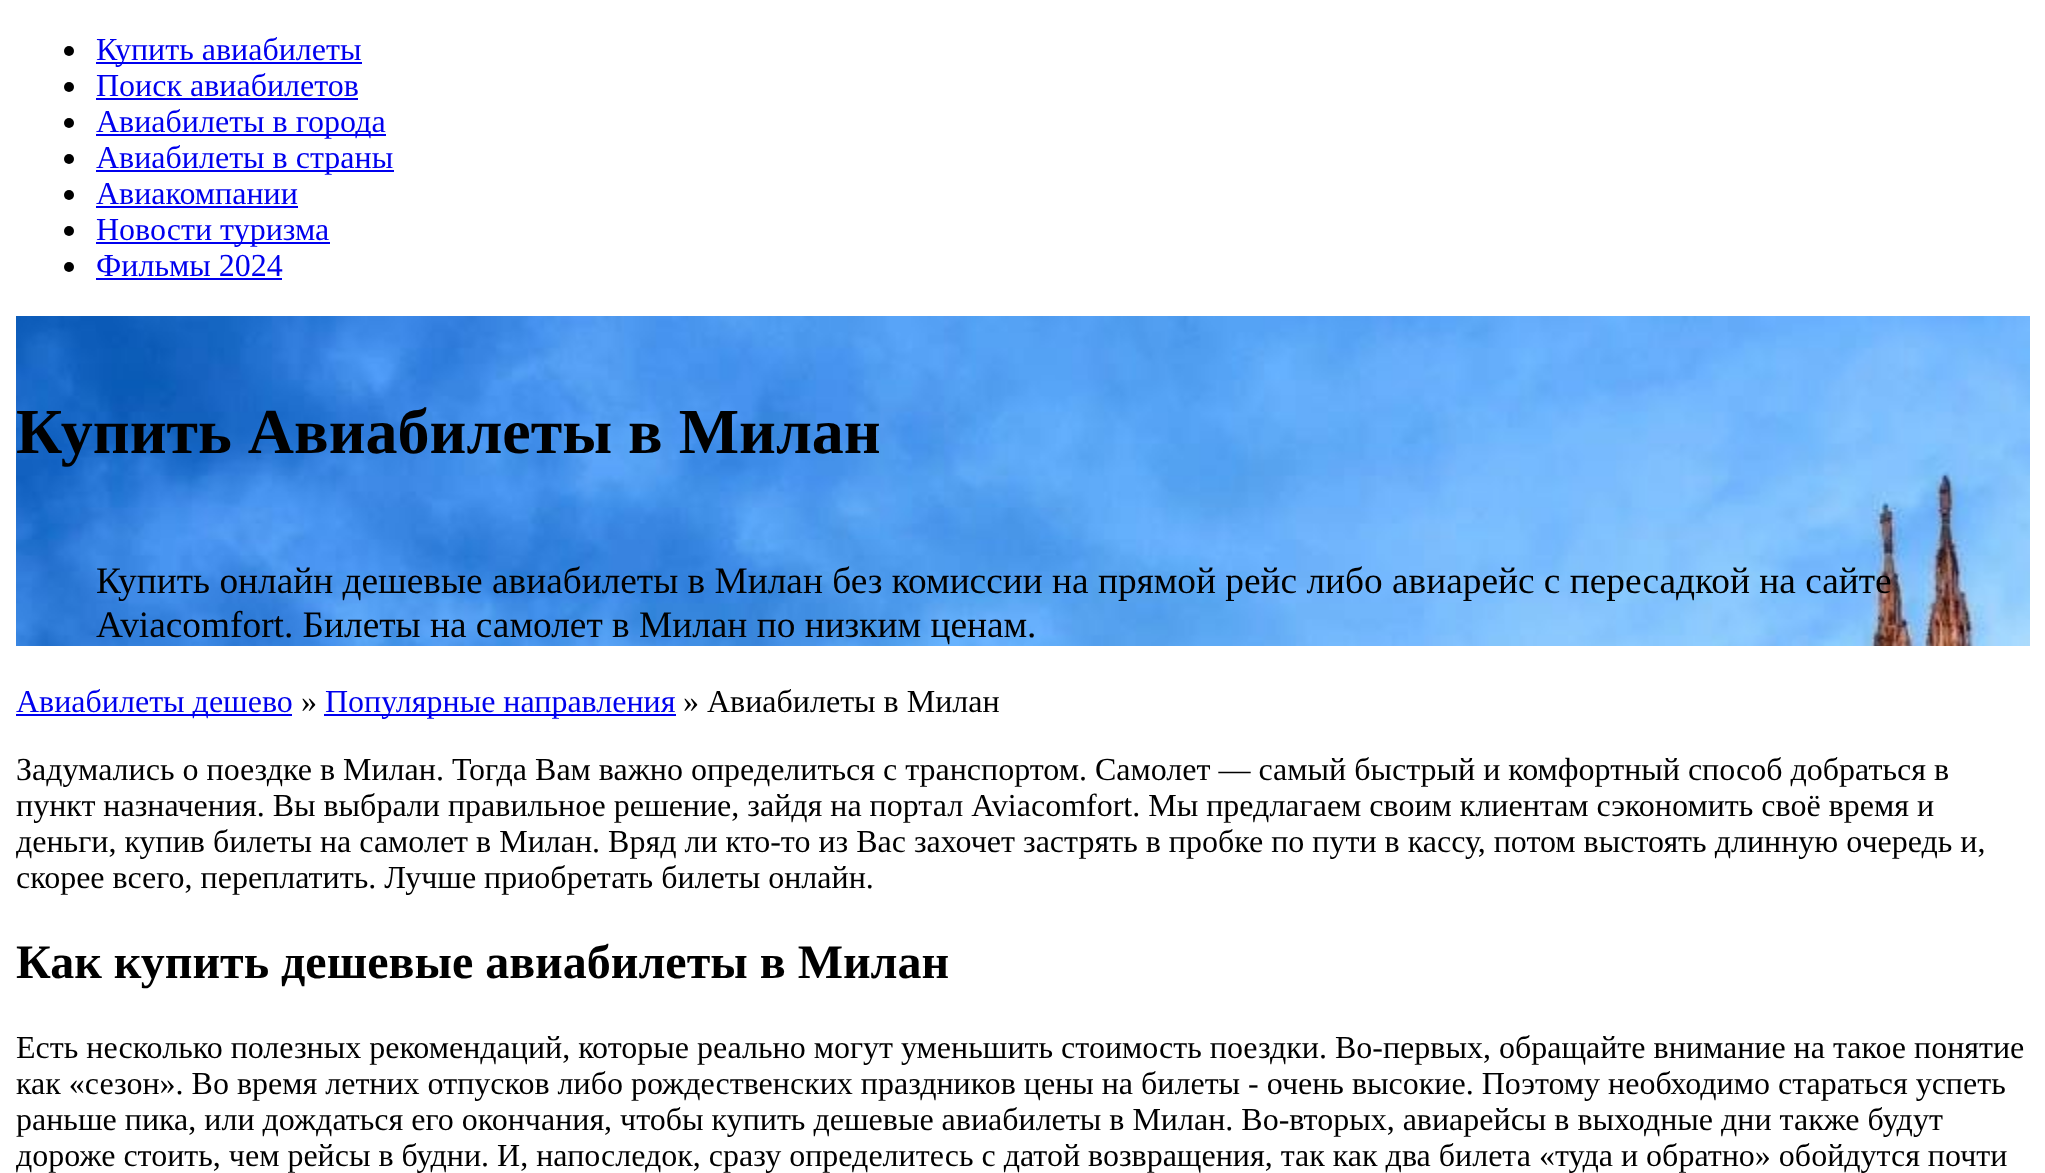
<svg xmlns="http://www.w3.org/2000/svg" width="2045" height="1173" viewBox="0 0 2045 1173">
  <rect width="100%" height="100%" fill="#ffffff"/>
  <circle cx="69" cy="51" r="5" fill="#000000"/>
  <rect x="96" y="62" width="266" height="2" fill="#0000ee"/>
  <text x="96" y="60" font-family="Liberation Serif" font-size="32" fill="#0000ee">Купить авиабилеты</text>
  <circle cx="69" cy="87" r="5" fill="#000000"/>
  <text x="96" y="96" font-family="Liberation Serif" font-size="32" fill="#0000ee">Поиск авиабилетов</text>
  <rect x="96" y="98" width="262" height="2" fill="#0000ee"/>
  <circle cx="69" cy="123" r="5" fill="#000000"/>
  <rect x="96" y="134" width="290" height="2" fill="#0000ee"/>
  <text x="96" y="132" font-family="Liberation Serif" font-size="32" fill="#0000ee">Авиабилеты в города</text>
  <circle cx="69" cy="159" r="5" fill="#000000"/>
  <rect x="96" y="170" width="298" height="2" fill="#0000ee"/>
  <text x="96" y="168" font-family="Liberation Serif" font-size="32" fill="#0000ee">Авиабилеты в страны</text>
  <circle cx="69" cy="195" r="5" fill="#000000"/>
  <text x="96" y="204" font-family="Liberation Serif" font-size="32" fill="#0000ee">Авиакомпании</text>
  <rect x="96" y="206" width="202" height="2" fill="#0000ee"/>
  <circle cx="69" cy="231" r="5" fill="#000000"/>
  <rect x="96" y="242" width="234" height="2" fill="#0000ee"/>
  <text x="96" y="240" font-family="Liberation Serif" font-size="32" fill="#0000ee">Новости туризма</text>
  <circle cx="69" cy="267" r="5" fill="#000000"/>
  <text x="96" y="276" font-family="Liberation Serif" font-size="32" fill="#0000ee">Фильмы 2024</text>
  <rect x="96" y="278" width="186" height="2" fill="#0000ee"/>
  <image x="16" y="316" width="2014" height="330" href="img1.png"/>
  <text x="16" y="453" font-family="Liberation Serif" font-size="64" font-weight="bold" fill="#000000">Купить Авиабилеты в Милан</text>
  <text x="96" y="593" font-family="Liberation Serif" font-size="37.35" fill="#000000">Купить онлайн дешевые авиабилеты в Милан без комиссии на прямой рейс либо авиарейс с пересадкой на сайте</text>
  <text x="96" y="637" font-family="Liberation Serif" font-size="37.35" fill="#000000">Aviacomfort. Билеты на самолет в Милан по низким ценам.</text>
  <rect x="16" y="714" width="276" height="2" fill="#0000ee"/>
  <text x="16" y="712" font-family="Liberation Serif" font-size="32" fill="#0000ee">Авиабилеты дешево</text>
  <text x="301" y="712" font-family="Liberation Serif" font-size="32" fill="#000000">»</text>
  <rect x="324" y="714" width="352" height="2" fill="#0000ee"/>
  <text x="325" y="712" font-family="Liberation Serif" font-size="32" fill="#0000ee">Популярные направления</text>
  <text x="683" y="712" font-family="Liberation Serif" font-size="32" fill="#000000">» Авиабилеты в Милан</text>
  <text x="16" y="780" font-family="Liberation Serif" font-size="32" fill="#000000">Задумались о поездке в Милан. Тогда Вам важно определиться с транспортом. Самолет — самый быстрый и комфортный способ добраться в</text>
  <text x="16" y="816" font-family="Liberation Serif" font-size="32" fill="#000000">пункт назначения. Вы выбрали правильное решение, зайдя на портал Aviacomfort. Мы предлагаем своим клиентам сэкономить своё время и</text>
  <text x="16" y="852" font-family="Liberation Serif" font-size="32" fill="#000000">деньги, купив билеты на самолет в Милан. Вряд ли кто-то из Вас захочет застрять в пробке по пути в кассу, потом выстоять длинную очередь и,</text>
  <text x="16" y="888" font-family="Liberation Serif" font-size="32" fill="#000000">скорее всего, переплатить. Лучше приобретать билеты онлайн.</text>
  <text x="16" y="978" font-family="Liberation Serif" font-size="48" font-weight="bold" fill="#000000">Как купить дешевые авиабилеты в Милан</text>
  <text x="16" y="1058" font-family="Liberation Serif" font-size="32" fill="#000000">Есть несколько полезных рекомендаций, которые реально могут уменьшить стоимость поездки. Во-первых, обращайте внимание на такое понятие</text>
  <text x="16" y="1094" font-family="Liberation Serif" font-size="32" fill="#000000">как «сезон». Во время летних отпусков либо рождественских праздников цены на билеты - очень высокие. Поэтому необходимо стараться успеть</text>
  <text x="16" y="1130" font-family="Liberation Serif" font-size="32" fill="#000000">раньше пика, или дождаться его окончания, чтобы купить дешевые авиабилеты в Милан. Во-вторых, авиарейсы в выходные дни также будут</text>
  <text x="16" y="1166" font-family="Liberation Serif" font-size="32" fill="#000000">дороже стоить, чем рейсы в будни. И, напоследок, сразу определитесь с датой возвращения, так как два билета «туда и обратно» обойдутся почти</text>
</svg>
